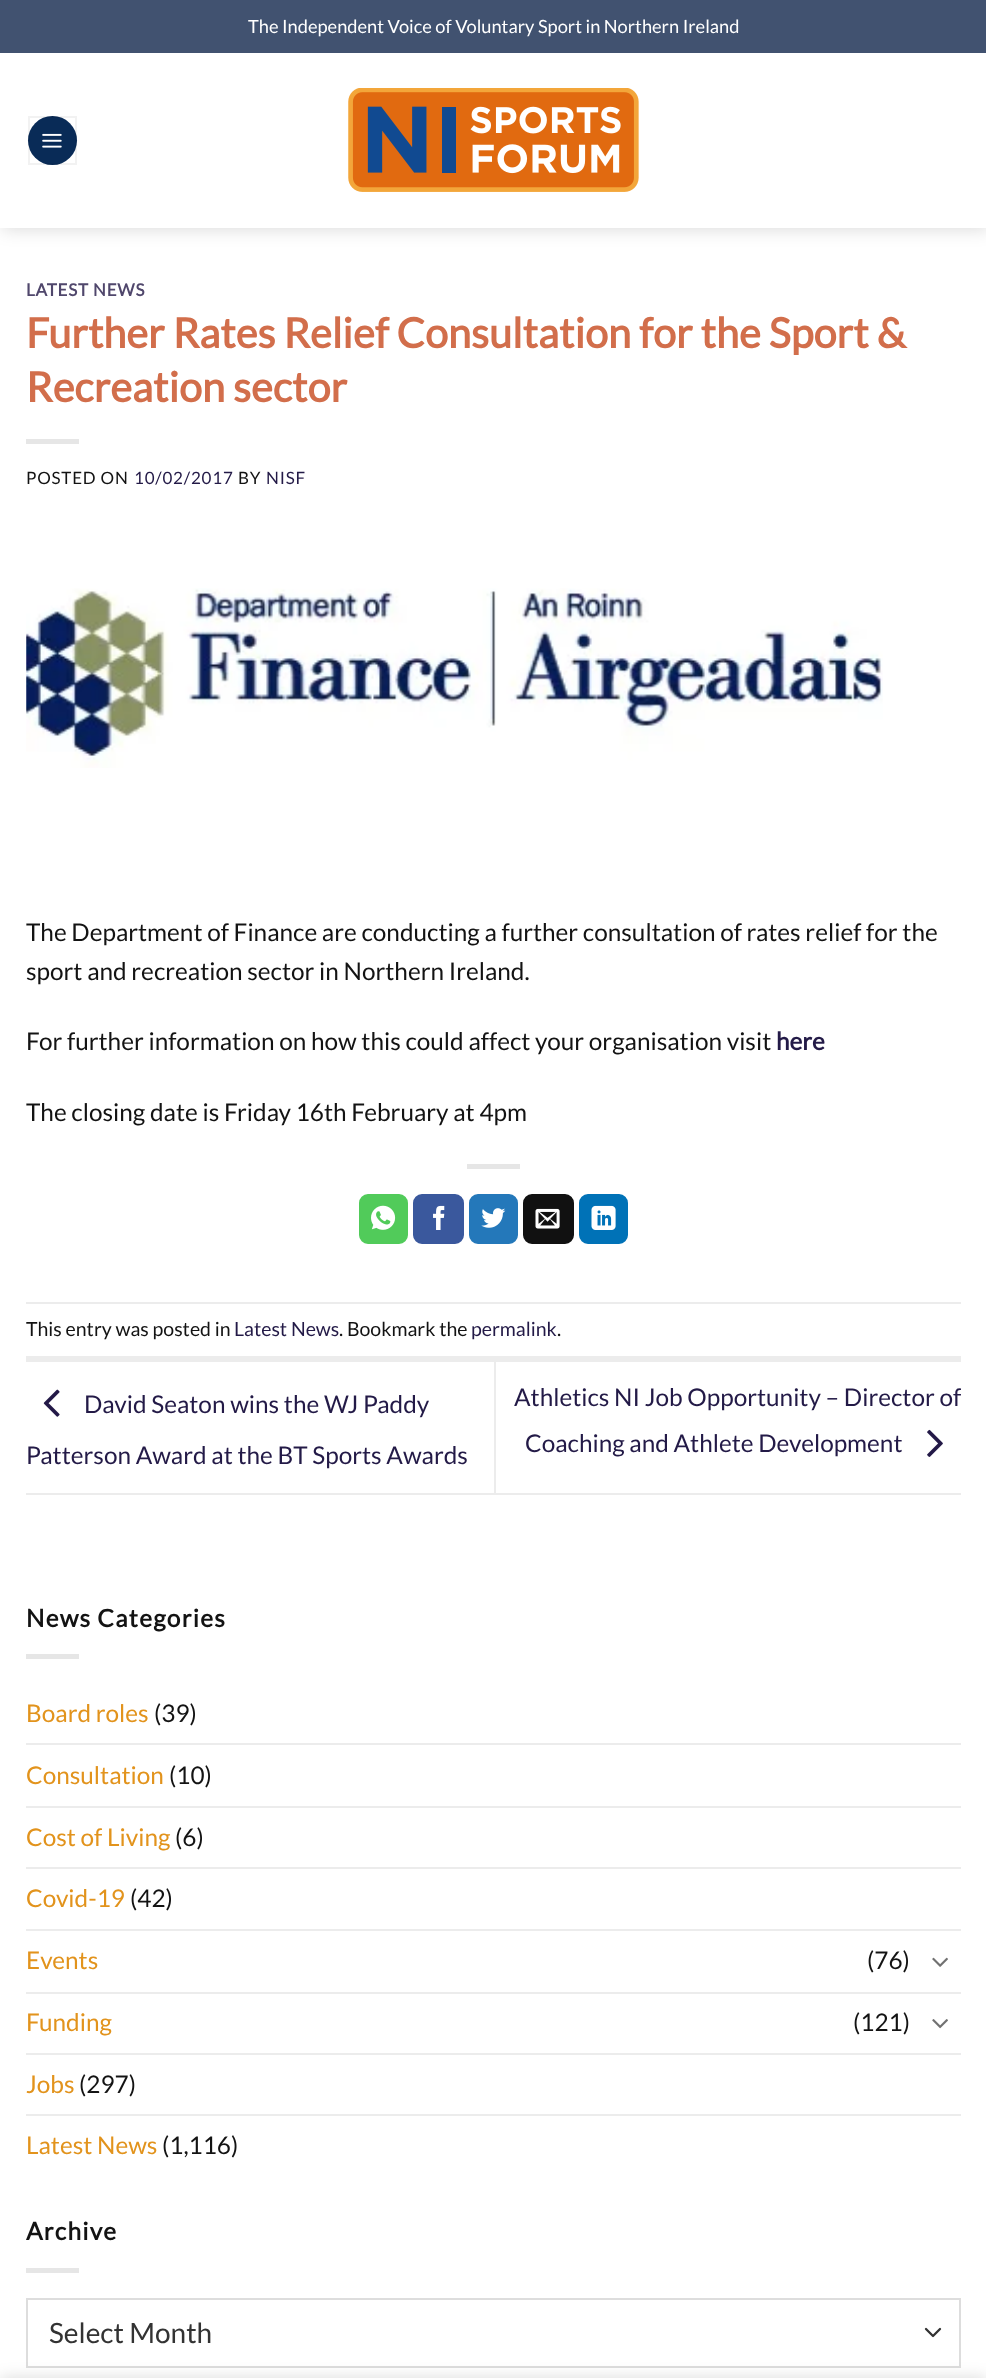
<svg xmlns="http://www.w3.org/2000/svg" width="986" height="2378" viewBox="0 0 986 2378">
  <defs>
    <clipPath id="clip1"><path d="M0 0H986V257H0ZM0 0H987V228H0Z" clip-rule="evenodd"/></clipPath>
    <filter id="blur1" x="-50%" y="-200%" width="200%" height="500%"><feGaussianBlur stdDeviation="9"/></filter>
    <filter id="blur2" x="-50%" y="-200%" width="200%" height="500%"><feGaussianBlur stdDeviation="8"/></filter>
  </defs>
  <rect width="100%" height="100%" fill="#ffffff"/>
  <g clip-path="url(#clip1)">
    <rect x="2" y="2" width="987" height="227" fill="#000000" fill-opacity="0.15" filter="url(#blur1)"/>
  </g>
  <rect x="0" y="0" width="986" height="53" fill="#415270"/>
  <text x="248" y="33" font-family="Lato" font-size="18.25" fill="#ffffff">The Independent Voice of Voluntary Sport in Northern Ireland</text>
  <circle cx="52.5" cy="140.5" r="24.5" fill="#092b57"/>
  <rect x="29" y="117" width="47" height="47" fill="none" stroke="#000000" stroke-opacity="0.05" stroke-width="2"/>
  <image x="42" y="133" width="20" height="15" href="img1.png"/>
  <image x="348" y="88" width="291" height="104" href="img2.png"/>
  <rect x="0" y="227" width="986" height="1" fill="#ffffff" fill-opacity="0.9"/>
  <text x="26" y="296" font-family="Lato" font-size="17" font-weight="bold" letter-spacing="0.8" fill="#50476c">LATEST NEWS</text>
  <text x="26" y="348" font-family="Lato" font-size="41.4" font-weight="bold" fill="#d26e4b">Further Rates Relief Consultation for the Sport &amp;</text>
  <text x="26" y="402" font-family="Lato" font-size="41.4" font-weight="bold" fill="#d26e4b">Recreation sector</text>
  <rect x="26" y="439" width="53" height="5" fill="#e6e6e6"/>
  <text x="26" y="484" font-family="Lato" font-size="17" letter-spacing="0.8" fill="#131313">POSTED ON</text>
  <text x="134" y="484" font-family="Lato" font-size="17" letter-spacing="0.8" fill="#231a47">10/02/2017</text>
  <text x="238" y="484" font-family="Lato" font-size="17" letter-spacing="0.8" fill="#131313">BY</text>
  <text x="266" y="484" font-family="Lato" font-size="17" letter-spacing="0.8" fill="#231a47">NISF</text>
  <image x="26" y="588" width="857" height="180" href="img3.png"/>
  <text x="26" y="941" font-family="Lato" font-size="24.35" fill="#131313">The Department of Finance are conducting a further consultation of rates relief for the</text>
  <text x="26" y="980" font-family="Lato" font-size="24.35" fill="#131313">sport and recreation sector in Northern Ireland.</text>
  <text x="26" y="1050" font-family="Lato" font-size="24.35" fill="#131313">For further information on how this could affect your organisation visit</text>
  <text x="776" y="1050" font-family="Lato" font-size="24.35" font-weight="bold" fill="#231a47">here</text>
  <text x="26" y="1121" font-family="Lato" font-size="24.35" fill="#131313">The closing date is Friday 16th February at 4pm</text>
  <rect x="467" y="1164" width="53" height="5" fill="#e6e6e6"/>
  <rect x="360" y="1195" width="47" height="48" rx="8" fill="#51cb5a" stroke="#51cb5a" stroke-width="2"/>
  <image x="371" y="1205" width="25" height="25" href="img4.png"/>
  <rect x="414" y="1195" width="49" height="48" rx="8" fill="#3a589d" stroke="#3a589d" stroke-width="2"/>
  <image x="433" y="1205" width="12" height="25" href="img5.png"/>
  <rect x="470" y="1195" width="47" height="48" rx="8" fill="#2478ba" stroke="#2478ba" stroke-width="2"/>
  <image x="481" y="1208" width="25" height="20" href="img6.png"/>
  <rect x="524" y="1195" width="49" height="48" rx="8" fill="#111111" stroke="#111111" stroke-width="2"/>
  <image x="535" y="1208" width="25" height="21" href="img7.png"/>
  <rect x="580" y="1195" width="47" height="48" rx="8" fill="#0072b7" stroke="#0072b7" stroke-width="2"/>
  <image x="591" y="1205" width="25" height="25" href="img8.png"/>
  <rect x="26" y="1302" width="935" height="2" fill="#ececec"/>
  <rect x="26" y="1356" width="935" height="6" fill="#ececec"/>
  <text x="26" y="1336" font-family="Lato" font-size="19.5" fill="#131313">This entry was posted in</text>
  <text x="234" y="1336" font-family="Lato" font-size="19.5" fill="#231a47">Latest News</text>
  <text x="339" y="1336" font-family="Lato" font-size="19.5" fill="#131313">. Bookmark the</text>
  <text x="471" y="1336" font-family="Lato" font-size="19.5" fill="#231a47">permalink</text>
  <text x="557" y="1336" font-family="Lato" font-size="19.5" fill="#131313">.</text>
  <rect x="26" y="1493" width="935" height="2" fill="#ececec"/>
  <image x="43" y="1389" width="17" height="28" href="img9.png"/>
  <text x="84" y="1413" font-family="Lato" font-size="24.35" fill="#231a47">David Seaton wins the WJ Paddy</text>
  <text x="26" y="1464" font-family="Lato" font-size="24.35" fill="#231a47">Patterson Award at the BT Sports Awards</text>
  <rect x="494" y="1362" width="2" height="131" fill="#ececec"/>
  <text x="514" y="1406" font-family="Lato" font-size="24.35" fill="#231a47">Athletics NI Job Opportunity – Director of</text>
  <text x="525" y="1452" font-family="Lato" font-size="24.35" fill="#231a47">Coaching and Athlete Development</text>
  <image x="927" y="1429" width="16" height="28" href="img10.png"/>
  <text x="26" y="1627" font-family="Lato" font-size="24.35" font-weight="bold" letter-spacing="1.25" fill="#131313">News Categories</text>
  <rect x="26" y="1654" width="53" height="5" fill="#e6e6e6"/>
  <text x="26" y="1722" font-family="Lato" font-size="24.35" fill="#e2931c">Board roles</text>
  <text x="154" y="1722" font-family="Lato" font-size="24.35" fill="#131313">(39)</text>
  <rect x="26" y="1743" width="935" height="2" fill="#ececec"/>
  <text x="26" y="1784" font-family="Lato" font-size="24.35" fill="#e2931c">Consultation</text>
  <text x="169" y="1784" font-family="Lato" font-size="24.35" fill="#131313">(10)</text>
  <rect x="26" y="1806" width="935" height="2" fill="#ececec"/>
  <text x="26" y="1846" font-family="Lato" font-size="24.35" fill="#e2931c">Cost of Living</text>
  <text x="175" y="1846" font-family="Lato" font-size="24.35" fill="#131313">(6)</text>
  <rect x="26" y="1867" width="935" height="2" fill="#ececec"/>
  <text x="26" y="1907" font-family="Lato" font-size="24.35" fill="#e2931c">Covid-19</text>
  <text x="130" y="1907" font-family="Lato" font-size="24.35" fill="#131313">(42)</text>
  <rect x="26" y="1929" width="935" height="2" fill="#ececec"/>
  <text x="26" y="1969" font-family="Lato" font-size="24.35" fill="#e2931c">Events</text>
  <text x="867" y="1969" font-family="Lato" font-size="24.35" fill="#131313">(76)</text>
  <image x="932" y="1957" width="16" height="10" href="img11.png"/>
  <rect x="26" y="1992" width="935" height="2" fill="#ececec"/>
  <text x="26" y="2031" font-family="Lato" font-size="24.35" fill="#e2931c">Funding</text>
  <text x="853" y="2031" font-family="Lato" font-size="24.35" fill="#131313">(121)</text>
  <image x="932" y="2019" width="16" height="10" href="img12.png"/>
  <rect x="26" y="2053" width="935" height="2" fill="#ececec"/>
  <text x="26" y="2093" font-family="Lato" font-size="24.35" fill="#e2931c">Jobs</text>
  <text x="79" y="2093" font-family="Lato" font-size="24.35" fill="#131313">(297)</text>
  <rect x="26" y="2114" width="935" height="2" fill="#ececec"/>
  <text x="26" y="2154" font-family="Lato" font-size="24.35" fill="#e2931c">Latest News</text>
  <text x="162" y="2154" font-family="Lato" font-size="24.35" fill="#131313">(1,116)</text>
  <text x="26" y="2240" font-family="Lato" font-size="24.35" font-weight="bold" letter-spacing="1.25" fill="#131313">Archive</text>
  <rect x="26" y="2268" width="53" height="5" fill="#e6e6e6"/>
  <path d="M926 2329L933 2336L940 2329" fill="none" stroke="#333333" stroke-width="2.3" stroke-linecap="round" stroke-linejoin="round"/>
  <rect x="27" y="2299" width="933" height="68" fill="none" stroke="#dddddd" stroke-width="2"/>
  <text x="49" y="2343" font-family="Lato" font-size="28" fill="#333333">Select Month</text>
  <rect x="0" y="2378" width="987" height="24" fill="#000000" fill-opacity="0.14" filter="url(#blur2)"/>
</svg>
